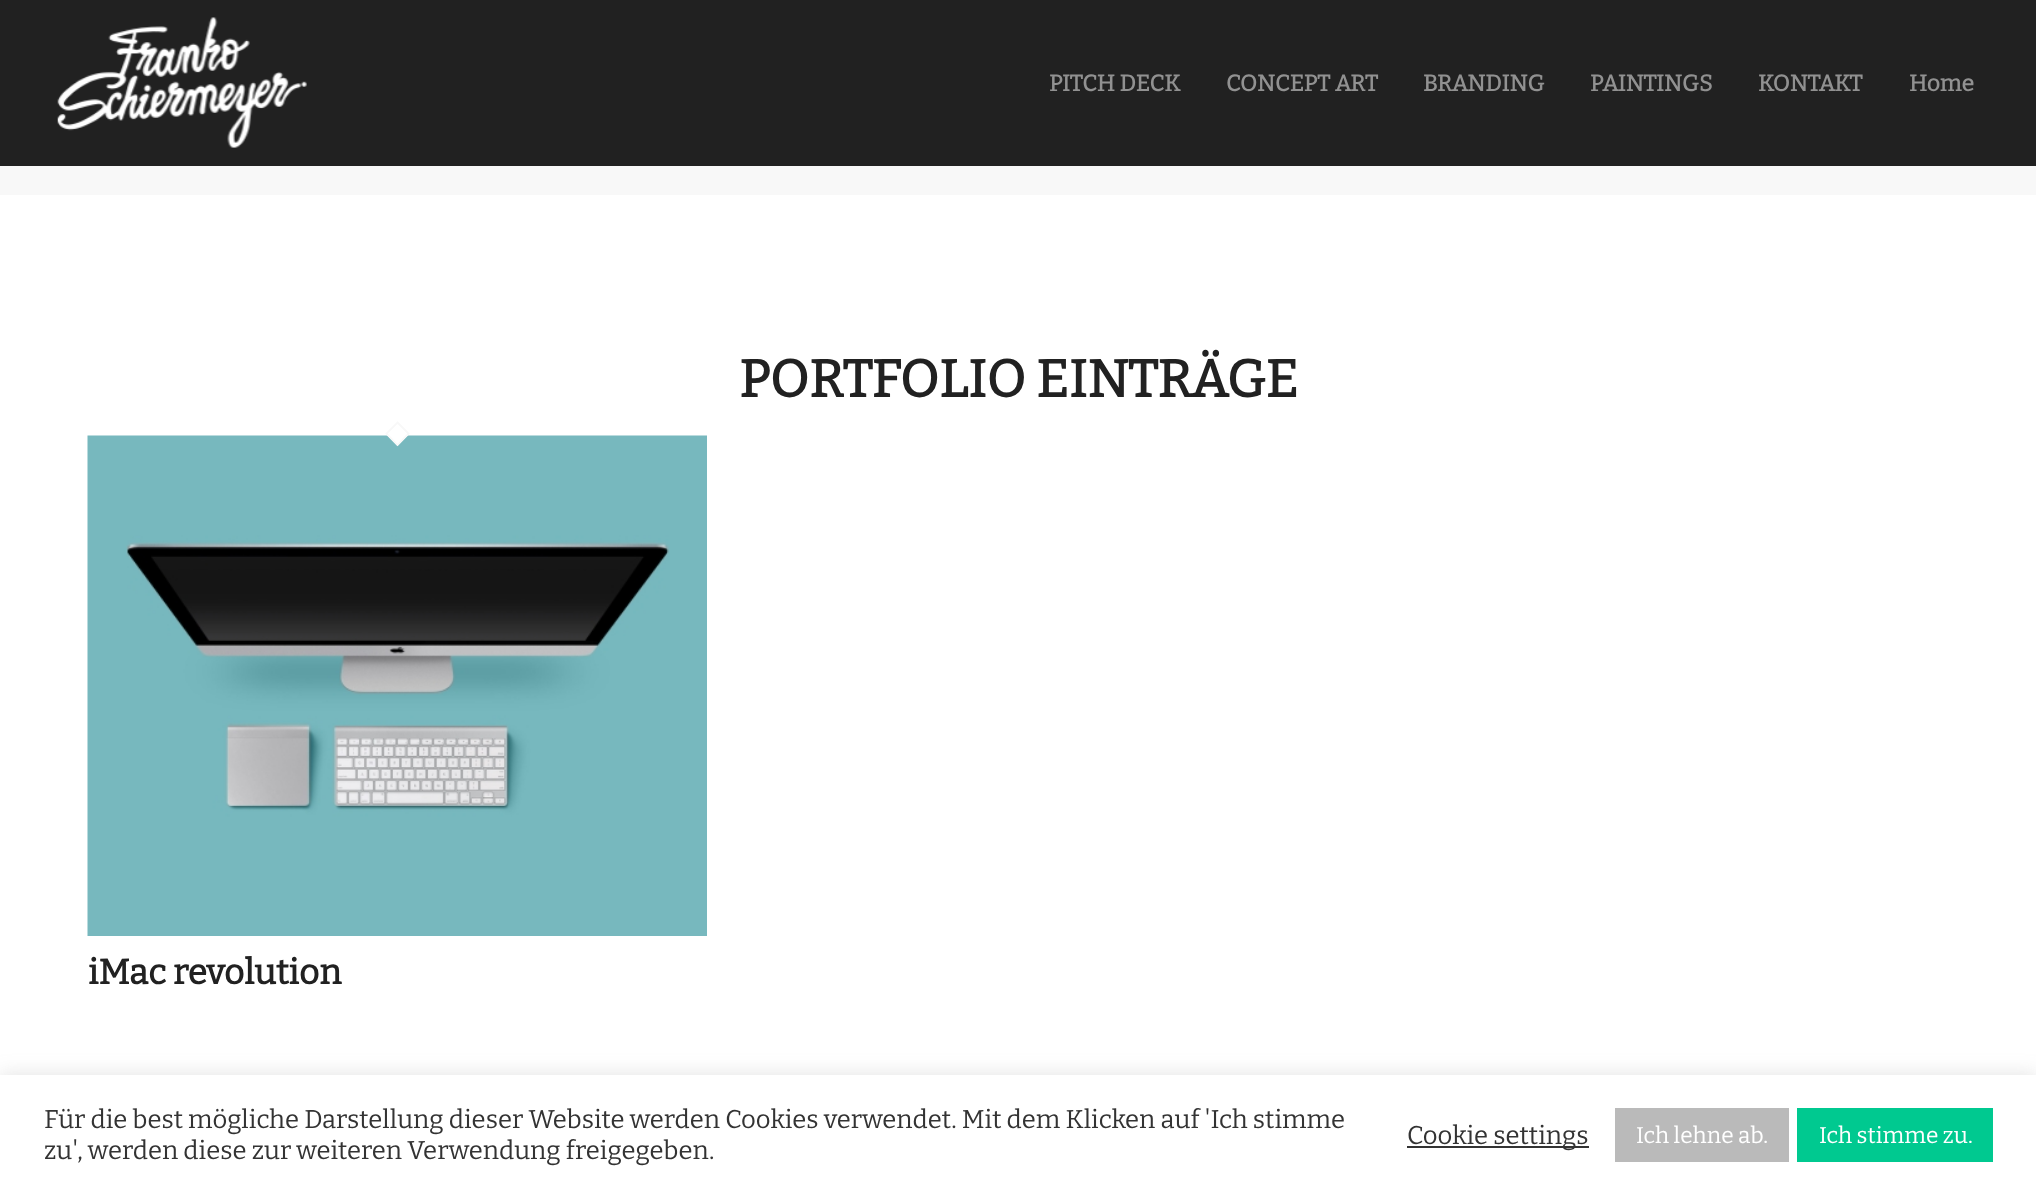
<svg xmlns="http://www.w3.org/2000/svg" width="2036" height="1195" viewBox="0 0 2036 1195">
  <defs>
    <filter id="blur1" x="-50%" y="-200%" width="200%" height="500%"><feGaussianBlur stdDeviation="9"/></filter>
  </defs>
  <rect width="100%" height="100%" fill="#f8f8f8"/>
  <rect x="0" y="0" width="2036" height="166" fill="#212121"/>
  <image x="57" y="17" width="250" height="131" href="img1.png"/>
  <text x="1049" y="91" font-family="Bitter" font-size="22.75" font-weight="bold" fill="#919191">PITCH DECK</text>
  <text x="1226" y="91" font-family="Bitter" font-size="22.75" font-weight="bold" fill="#919191">CONCEPT ART</text>
  <text x="1423" y="91" font-family="Bitter" font-size="22.75" font-weight="bold" fill="#919191">BRANDING</text>
  <text x="1590" y="91" font-family="Bitter" font-size="22.75" font-weight="bold" fill="#919191">PAINTINGS</text>
  <text x="1758" y="91" font-family="Bitter" font-size="22.75" font-weight="bold" fill="#919191">KONTAKT</text>
  <text x="1909" y="91" font-family="Bitter" font-size="22.75" font-weight="bold" fill="#919191">Home</text>
  <rect x="0" y="195" width="2036" height="880" fill="#ffffff"/>
  <text x="739" y="397" font-family="Bitter" font-size="52.5" font-weight="bold" fill="#212121">PORTFOLIO EINTRÄGE</text>
  <image x="87" y="435" width="620" height="501" href="img2.png"/>
  <path d="M397.5 421.5L410 433.5L397.5 446L385 433.5Z" fill="#ffffff"/>
  <path d="M397.5 422.5L408.5 433.5L397.5 445L386.5 433.5Z" fill="none" stroke="#f8f8f8" stroke-width="1.8"/>
  <text x="88" y="984" font-family="Bitter" font-size="35" font-weight="bold" fill="#212121">iMac revolution</text>
  <rect x="0" y="1073" width="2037" height="121" fill="#acabab" fill-opacity="0.3" filter="url(#blur1)"/>
  <rect x="0" y="1075" width="2036" height="120" fill="#ffffff"/>
  <text x="44" y="1128" font-family="Bitter" font-size="25.67" font-weight="100" fill="#333333">Für die best mögliche Darstellung dieser Website werden Cookies verwendet. Mit dem Klicken auf 'Ich stimme</text>
  <text x="44" y="1159" font-family="Bitter" font-size="25.67" font-weight="100" fill="#333333">zu', werden diese zur weiteren Verwendung freigegeben.</text>
  <rect x="1407" y="1146" width="182" height="2" fill="#333333"/>
  <text x="1407" y="1144" font-family="Bitter" font-size="25.67" font-weight="100" fill="#333333">Cookie settings</text>
  <rect x="1615" y="1108" width="174" height="54" fill="#bababa"/>
  <text x="1636" y="1143" font-family="Bitter" font-size="22.75" font-weight="100" fill="#ffffff">Ich lehne ab.</text>
  <rect x="1797" y="1108" width="196" height="54" fill="#00c990"/>
  <text x="1819" y="1143" font-family="Bitter" font-size="22.75" font-weight="100" fill="#ffffff">Ich stimme zu.</text>
</svg>
